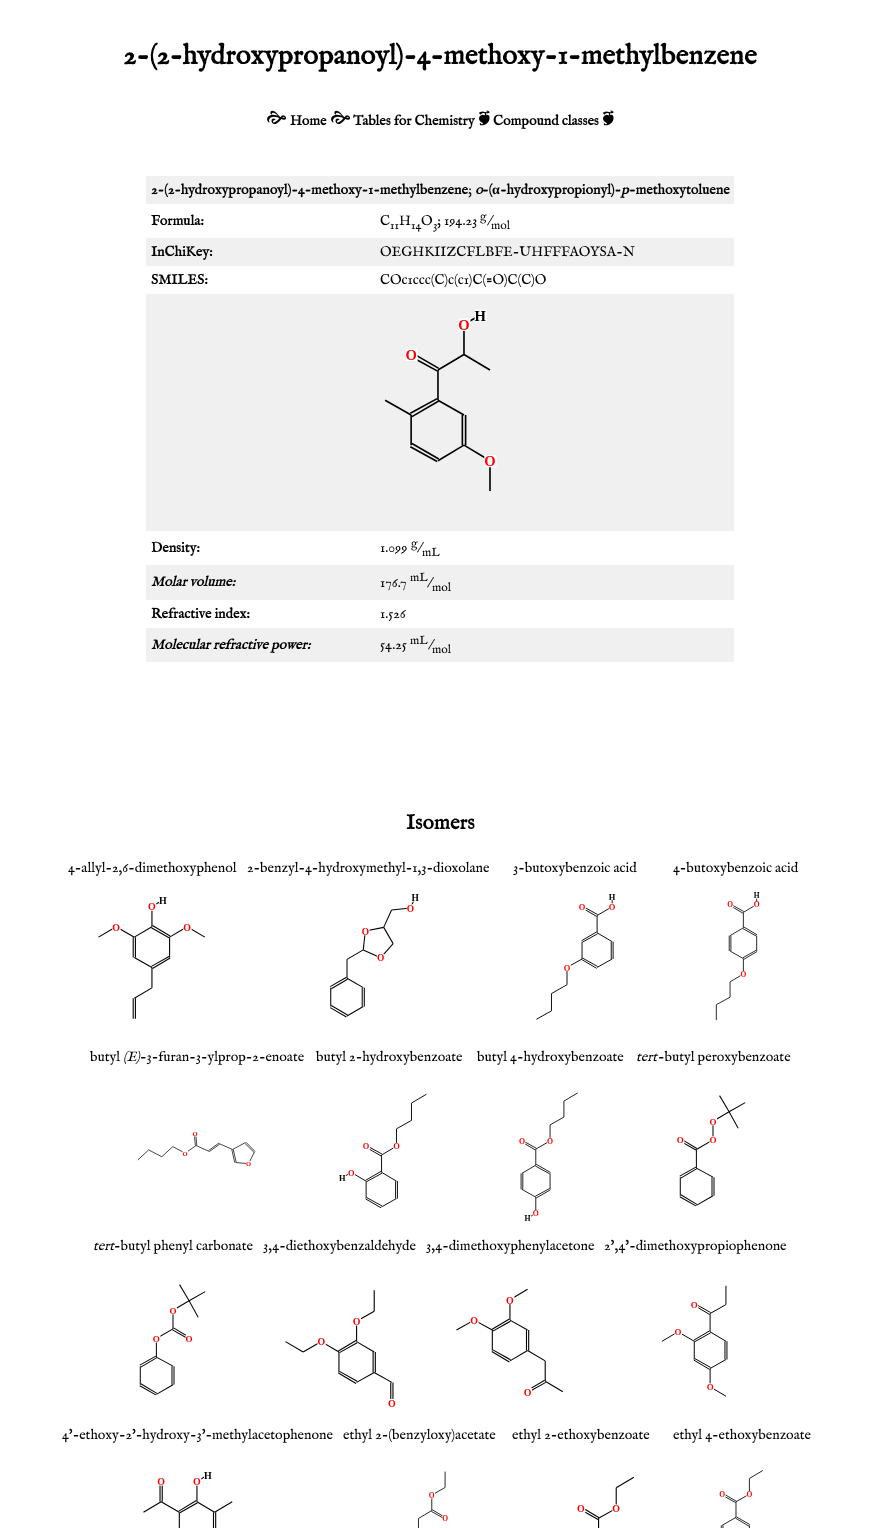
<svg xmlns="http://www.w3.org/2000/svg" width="880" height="1528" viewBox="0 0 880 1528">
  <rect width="100%" height="100%" fill="#ffffff"/>
  <text x="123" y="64" font-family="IM FELL English" font-size="28" font-weight="bold" fill="#000000">2-(2-hydroxypropanoyl)-4-methoxy-1-methylbenzene</text>
  <text x="266" y="125" font-family="'Noto Sans Symbols 2'" font-size="21" font-weight="bold" fill="#000000">🙚</text>
  <text x="290" y="125" font-family="IM FELL English" font-size="14" font-weight="bold" fill="#000000">Home</text>
  <text x="330" y="125" font-family="'Noto Sans Symbols 2'" font-size="21" font-weight="bold" fill="#000000">🙚</text>
  <text x="353" y="125" font-family="IM FELL English" font-size="14" font-weight="bold" fill="#000000">Tables for Chemistry</text>
  <text x="478" y="125" font-family="Bona Nova" font-size="21" font-weight="bold" fill="#000000">🙘</text>
  <text x="493" y="125" font-family="IM FELL English" font-size="14" font-weight="bold" fill="#000000">Compound classes</text>
  <text x="602" y="125" font-family="Bona Nova" font-size="21" font-weight="bold" fill="#000000">🙘</text>
  <rect x="146" y="176" width="588" height="28" fill="#f0f0f0"/>
  <text x="151" y="194" font-family="IM FELL English" font-size="14" font-weight="bold" fill="#000000">2-(2-hydroxypropanoyl)-4-methoxy-1-methylbenzene</text>
  <text x="468" y="194" font-family="IM FELL English" font-size="14" fill="#000000">;</text>
  <text x="475" y="194" font-family="IM FELL English" font-size="14" font-weight="bold" font-style="italic" fill="#000000">o</text>
  <text x="482" y="194" font-family="IM FELL English" font-size="14" font-weight="bold" fill="#000000">-(</text>
  <text x="492" y="194" font-family="Liberation Serif" font-size="14" font-weight="bold" fill="#000000">α</text>
  <text x="500" y="194" font-family="IM FELL English" font-size="14" font-weight="bold" fill="#000000">-hydroxypropionyl)-</text>
  <text x="621" y="194" font-family="IM FELL English" font-size="14" font-weight="bold" font-style="italic" fill="#000000">p</text>
  <text x="629" y="194" font-family="IM FELL English" font-size="14" font-weight="bold" fill="#000000">-methoxytoluene</text>
  <text x="151" y="225" font-family="IM FELL English" font-size="14" font-weight="bold" fill="#000000">Formula:</text>
  <text x="380" y="225" font-family="IM FELL English" font-size="14" fill="#000000">C</text>
  <text x="390" y="229" font-family="IM FELL English" font-size="12" fill="#000000">11</text>
  <text x="399" y="225" font-family="IM FELL English" font-size="14" fill="#000000">H</text>
  <text x="411" y="229" font-family="IM FELL English" font-size="12" fill="#000000">14</text>
  <text x="421" y="225" font-family="IM FELL English" font-size="14" fill="#000000">O</text>
  <text x="433" y="229" font-family="IM FELL English" font-size="12" fill="#000000">3</text>
  <text x="437" y="225" font-family="IM FELL English" font-size="14" fill="#000000">; 194.23</text>
  <text x="480" y="220" font-family="IM FELL English" font-size="12" fill="#000000">g</text>
  <text x="487" y="225" font-family="IM FELL English" font-size="14" fill="#000000">/</text>
  <text x="491" y="229" font-family="IM FELL English" font-size="12" fill="#000000">mol</text>
  <rect x="146" y="238" width="588" height="28" fill="#f0f0f0"/>
  <text x="151" y="256" font-family="IM FELL English" font-size="14" font-weight="bold" fill="#000000">InChiKey:</text>
  <text x="380" y="256" font-family="IM FELL English" font-size="14" fill="#000000">OEGHKIIZCFLBFE-UHFFFAOYSA-N</text>
  <text x="151" y="284" font-family="IM FELL English" font-size="14" font-weight="bold" fill="#000000">SMILES:</text>
  <text x="380" y="284" font-family="IM FELL English" font-size="14" fill="#000000">COc1ccc(C)c(c1)C(=O)C(C)O</text>
  <rect x="146" y="294" width="588" height="237" fill="#f0f0f0"/>
  <image x="384" y="309" width="113" height="182" href="img1.png"/>
  <text x="151" y="552" font-family="IM FELL English" font-size="14" font-weight="bold" fill="#000000">Density:</text>
  <text x="380" y="552" font-family="IM FELL English" font-size="14" fill="#000000">1.099</text>
  <text x="411" y="547" font-family="IM FELL English" font-size="12" fill="#000000">g</text>
  <text x="417" y="552" font-family="IM FELL English" font-size="14" fill="#000000">/</text>
  <text x="422" y="556" font-family="IM FELL English" font-size="12" fill="#000000">mL</text>
  <rect x="146" y="565" width="588" height="35" fill="#f0f0f0"/>
  <text x="151" y="586" font-family="IM FELL English" font-size="14" font-weight="bold" font-style="italic" fill="#000000">Molar volume:</text>
  <text x="380" y="587" font-family="IM FELL English" font-size="14" fill="#000000">176.7</text>
  <text x="410" y="581" font-family="IM FELL English" font-size="12" fill="#000000">mL</text>
  <text x="427" y="587" font-family="IM FELL English" font-size="14" fill="#000000">/</text>
  <text x="432" y="591" font-family="IM FELL English" font-size="12" fill="#000000">mol</text>
  <text x="151" y="618" font-family="IM FELL English" font-size="14" font-weight="bold" fill="#000000">Refractive index:</text>
  <text x="380" y="618" font-family="IM FELL English" font-size="14" fill="#000000">1.526</text>
  <rect x="146" y="628" width="588" height="34" fill="#f0f0f0"/>
  <text x="151" y="649" font-family="IM FELL English" font-size="14" font-weight="bold" font-style="italic" fill="#000000">Molecular refractive power:</text>
  <text x="380" y="649" font-family="IM FELL English" font-size="14" fill="#000000">54.25</text>
  <text x="410" y="644" font-family="IM FELL English" font-size="12" fill="#000000">mL</text>
  <text x="428" y="649" font-family="IM FELL English" font-size="14" fill="#000000">/</text>
  <text x="432" y="653" font-family="IM FELL English" font-size="12" fill="#000000">mol</text>
  <text x="406" y="829" font-family="IM FELL English" font-size="21" font-weight="bold" fill="#000000">Isomers</text>
  <text x="68" y="872" font-family="IM FELL English" font-size="14" fill="#000000">4-allyl-2,6-dimethoxyphenol</text>
  <image x="98" y="897" width="107" height="122" href="img2.png"/>
  <text x="247" y="872" font-family="IM FELL English" font-size="14" fill="#000000">2-benzyl-4-hydroxymethyl-1,3-dioxolane</text>
  <image x="330" y="894" width="89" height="124" href="img3.png"/>
  <text x="513" y="872" font-family="IM FELL English" font-size="14" fill="#000000">3-butoxybenzoic acid</text>
  <image x="536" y="894" width="80" height="126" href="img4.png"/>
  <text x="673" y="872" font-family="IM FELL English" font-size="14" fill="#000000">4-butoxybenzoic acid</text>
  <image x="715" y="892" width="45" height="129" href="img5.png"/>
  <text x="90" y="1061" font-family="IM FELL English" font-size="14" fill="#000000">butyl</text>
  <text x="123" y="1061" font-family="IM FELL English" font-size="14" font-style="italic" fill="#000000">(E)</text>
  <text x="140" y="1061" font-family="IM FELL English" font-size="14" fill="#000000">-3-furan-3-ylprop-2-enoate</text>
  <image x="137" y="1132" width="119" height="34" href="img6.png"/>
  <text x="316" y="1061" font-family="IM FELL English" font-size="14" fill="#000000">butyl 2-hydroxybenzoate</text>
  <image x="339" y="1093" width="88" height="116" href="img7.png"/>
  <text x="477" y="1061" font-family="IM FELL English" font-size="14" fill="#000000">butyl 4-hydroxybenzoate</text>
  <image x="519" y="1092" width="59" height="129" href="img8.png"/>
  <text x="636" y="1061" font-family="IM FELL English" font-size="14" font-style="italic" fill="#000000">tert</text>
  <text x="658" y="1061" font-family="IM FELL English" font-size="14" fill="#000000">-butyl peroxybenzoate</text>
  <image x="677" y="1095" width="69" height="112" href="img9.png"/>
  <text x="93" y="1250" font-family="IM FELL English" font-size="14" font-style="italic" fill="#000000">tert</text>
  <text x="114" y="1250" font-family="IM FELL English" font-size="14" fill="#000000">-butyl phenyl carbonate</text>
  <image x="139" y="1284" width="67" height="112" href="img10.png"/>
  <text x="263" y="1250" font-family="IM FELL English" font-size="14" fill="#000000">3,4-diethoxybenzaldehyde</text>
  <image x="285" y="1290" width="111" height="117" href="img11.png"/>
  <text x="426" y="1250" font-family="IM FELL English" font-size="14" fill="#000000">3,4-dimethoxyphenylacetone</text>
  <image x="456" y="1288" width="107" height="108" href="img12.png"/>
  <text x="604" y="1250" font-family="IM FELL English" font-size="14" fill="#000000">2',4'-dimethoxypropiophenone</text>
  <image x="662" y="1285" width="66" height="112" href="img13.png"/>
  <text x="62" y="1439" font-family="IM FELL English" font-size="14" fill="#000000">4'-ethoxy-2'-hydroxy-3'-methylacetophenone</text>
  <image x="143" y="1472" width="90" height="56" href="img14.png"/>
  <text x="343" y="1439" font-family="IM FELL English" font-size="14" fill="#000000">ethyl 2-(benzyloxy)acetate</text>
  <image x="417" y="1471" width="31" height="57" href="img15.png"/>
  <text x="512" y="1439" font-family="IM FELL English" font-size="14" fill="#000000">ethyl 2-ethoxybenzoate</text>
  <image x="577" y="1476" width="57" height="52" href="img16.png"/>
  <text x="673" y="1439" font-family="IM FELL English" font-size="14" fill="#000000">ethyl 4-ethoxybenzoate</text>
  <image x="719" y="1470" width="44" height="58" href="img17.png"/>
</svg>
